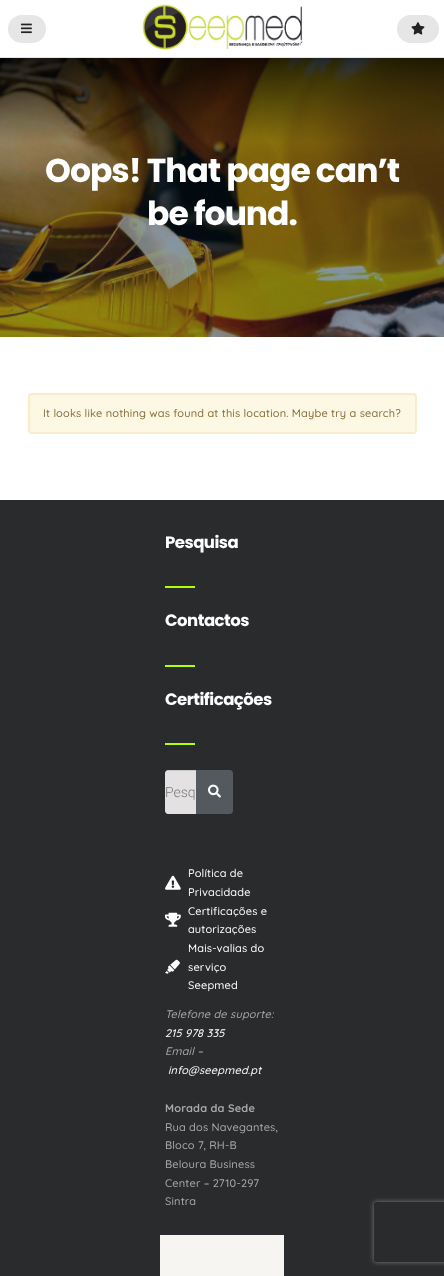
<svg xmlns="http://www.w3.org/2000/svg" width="444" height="1276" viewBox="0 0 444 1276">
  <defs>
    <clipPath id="clip1"><path d="M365 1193H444V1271H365ZM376 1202H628C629 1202 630 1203 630 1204V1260C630 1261 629 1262 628 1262H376C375 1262 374 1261 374 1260V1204C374 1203 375 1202 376 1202Z" clip-rule="evenodd"/></clipPath>
    <filter id="blur1" x="-50%" y="-200%" width="200%" height="500%"><feGaussianBlur stdDeviation="2.5"/></filter>
  </defs>
  <rect width="100%" height="100%" fill="#ffffff"/>
  <rect x="0" y="57" width="444" height="1" fill="#e5e5e5"/>
  <image x="142" y="4" width="161" height="46" href="img1.png"/>
  <rect x="8" y="15" width="38" height="28" rx="14" fill="#e6e6e6"/>
  <image x="21" y="23" width="11" height="11" href="img2.png"/>
  <rect x="397" y="15" width="42" height="28" rx="14" fill="#e6e6e6"/>
  <image x="411" y="22" width="14" height="13" href="img3.png"/>
  <image x="0" y="58" width="444" height="279" href="img4.png"/>
  <text x="45" y="182" font-family="Poppins" font-size="33" font-weight="bold" letter-spacing="-1" fill="#ffffff">Oops! That page can’t</text>
  <text x="147" y="225" font-family="Poppins" font-size="33" font-weight="bold" letter-spacing="-1" fill="#ffffff">be found.</text>
  <rect x="29" y="394" width="387" height="39" rx="3" fill="#fcf8e3" stroke="#faebcc" stroke-width="2"/>
  <text x="43" y="417" font-family="Quicksand" font-size="11" font-weight="500" letter-spacing="0.17" fill="#8a6d3b">It looks like nothing was found at this location. Maybe try a search?</text>
  <rect x="0" y="500" width="444" height="776" fill="#2a2b2d"/>
  <text x="165" y="548" font-family="Poppins" font-size="16.5" font-weight="bold" letter-spacing="-0.5" fill="#ffffff">Pesquisa</text>
  <rect x="165" y="586" width="30" height="2" fill="#b0ff06"/>
  <text x="165" y="626" font-family="Poppins" font-size="16.5" font-weight="bold" letter-spacing="-0.5" fill="#ffffff">Contactos</text>
  <rect x="165" y="665" width="30" height="2" fill="#b0ff06"/>
  <text x="165" y="705" font-family="Poppins" font-size="16.5" font-weight="bold" letter-spacing="-0.5" fill="#ffffff">Certificações</text>
  <rect x="165" y="743" width="30" height="2" fill="#b0ff06"/>
  <path d="M168 770H196V814H168C166.5 814 165 812.5 165 811V773C165 771.5 166.5 770 168 770Z" fill="#e3e1e1"/>
  <rect x="165" y="770" width="31" height="1" fill="#000000" fill-opacity="0.1"/>
  <text x="165" y="797" font-family="Roboto" font-size="14" font-weight="300" fill="#7a7a7a">Pesq</text>
  <path d="M196 770H230C231.5 770 233 771.5 233 773V811C233 812.5 231.5 814 230 814H196Z" fill="#54595f"/>
  <image x="208" y="784" width="13" height="14" href="img5.png"/>
  <image x="165" y="875" width="16" height="15" href="img6.png"/>
  <text x="188" y="877" font-family="Quicksand" font-size="11" font-weight="500" letter-spacing="0.17" fill="#ffffff">Política de</text>
  <text x="188" y="896" font-family="Quicksand" font-size="11" font-weight="500" letter-spacing="0.17" fill="#ffffff">Privacidade</text>
  <image x="165" y="912" width="16" height="15" href="img7.png"/>
  <text x="188" y="915" font-family="Quicksand" font-size="11" font-weight="500" letter-spacing="0.17" fill="#ffffff">Certificações e</text>
  <text x="188" y="933" font-family="Quicksand" font-size="11" font-weight="500" letter-spacing="0.17" fill="#ffffff">autorizações</text>
  <image x="165" y="959" width="15" height="15" href="img8.png"/>
  <text x="188" y="952" font-family="Quicksand" font-size="11" font-weight="500" letter-spacing="0.17" fill="#ffffff">Mais-valias do</text>
  <text x="188" y="971" font-family="Quicksand" font-size="11" font-weight="500" letter-spacing="0.17" fill="#ffffff">serviço</text>
  <text x="188" y="989" font-family="Quicksand" font-size="11" font-weight="500" letter-spacing="0.17" fill="#ffffff">Seepmed</text>
  <text x="165" y="1018" font-family="Quicksand" font-size="11" font-weight="500" font-style="italic" letter-spacing="0.17" fill="#aaa8a8">Telefone de suporte:</text>
  <text x="165" y="1037" font-family="Quicksand" font-size="11" font-weight="500" font-style="italic" letter-spacing="0.17" fill="#ffffff">215 978 335</text>
  <text x="165" y="1055" font-family="Quicksand" font-size="11" font-weight="500" font-style="italic" letter-spacing="0.17" fill="#aaa8a8">Email –</text>
  <text x="168" y="1074" font-family="Quicksand" font-size="11" font-weight="500" font-style="italic" letter-spacing="0.17" fill="#ffffff">info@seepmed.pt</text>
  <text x="165" y="1112" font-family="Quicksand" font-size="11" font-weight="bold" letter-spacing="0.17" fill="#aaa8a8">Morada da Sede</text>
  <text x="165" y="1131" font-family="Quicksand" font-size="11" font-weight="500" letter-spacing="0.17" fill="#aaa8a8">Rua dos Navegantes,</text>
  <text x="165" y="1149" font-family="Quicksand" font-size="11" font-weight="500" letter-spacing="0.17" fill="#aaa8a8">Bloco 7, RH-B</text>
  <text x="165" y="1168" font-family="Quicksand" font-size="11" font-weight="500" letter-spacing="0.17" fill="#aaa8a8">Beloura Business</text>
  <text x="165" y="1187" font-family="Quicksand" font-size="11" font-weight="500" letter-spacing="0.17" fill="#aaa8a8">Center – 2710-297</text>
  <text x="165" y="1205" font-family="Quicksand" font-size="11" font-weight="500" letter-spacing="0.17" fill="#aaa8a8">Sintra</text>
  <rect x="160" y="1235" width="124" height="41" fill="#f7f5f1"/>
  <g clip-path="url(#clip1)">
    <rect x="374" y="1202" width="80" height="60" rx="2" fill="#808080" filter="url(#blur1)"/>
  </g>
</svg>
